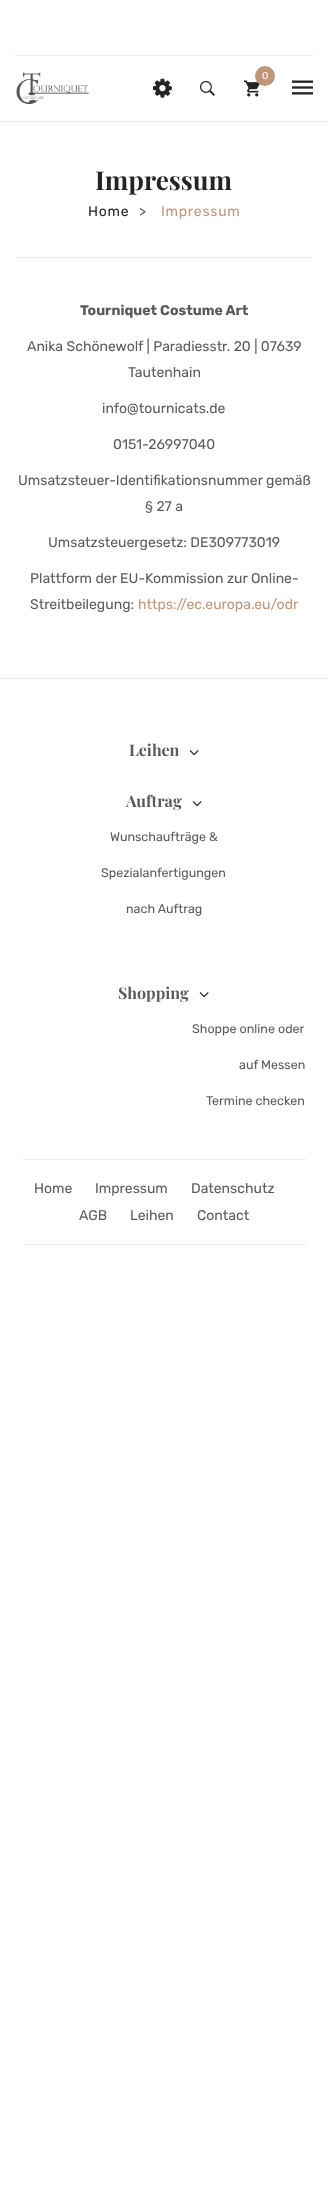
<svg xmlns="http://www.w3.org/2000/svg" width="328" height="2190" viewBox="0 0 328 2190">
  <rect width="100%" height="100%" fill="#ffffff"/>
  <rect x="0" y="121" width="328" height="1" fill="#ebebeb"/>
  <rect x="15" y="55" width="298" height="1" fill="#ebebeb"/>
  <image x="16" y="72" width="73" height="33" href="img1.png"/>
  <image x="244" y="80" width="16" height="17" href="img2.png"/>
  <circle cx="265" cy="76" r="10" fill="#c09578"/>
  <text x="262" y="79" font-family="Rubik" font-size="10" fill="#ffffff">0</text>
  <image x="153" y="78" width="19" height="20" href="img3.png"/>
  <image x="200" y="81" width="15" height="15" href="img4.png"/>
  <image x="292" y="80" width="21" height="15" href="img5.png"/>
  <rect x="15" y="257" width="298" height="1" fill="#ebebeb"/>
  <text x="95" y="190" font-family="Playfair Display" font-size="26" font-weight="bold" fill="#242424">Impressum</text>
  <text x="88" y="216" font-family="Rubik" font-size="14" letter-spacing="0.75" fill="#242424">Home</text>
  <text x="139" y="216" font-family="Rubik" font-size="14" letter-spacing="0.75" fill="#5a5a5a">&gt;</text>
  <text x="161" y="216" font-family="Rubik" font-size="14" letter-spacing="0.75" fill="#c09578">Impressum</text>
  <text x="80" y="315" font-family="Rubik" font-size="14" font-weight="bold" fill="#5a5a5a">Tourniquet Costume Art</text>
  <text x="27" y="351" font-family="Rubik" font-size="14" fill="#5a5a5a">Anika Schönewolf | Paradiesstr. 20 | 07639</text>
  <text x="128" y="377" font-family="Rubik" font-size="14" fill="#5a5a5a">Tautenhain</text>
  <text x="102" y="413" font-family="Rubik" font-size="14" fill="#5a5a5a">info@tournicats.de</text>
  <text x="113" y="449" font-family="Rubik" font-size="14" fill="#5a5a5a">0151-26997040</text>
  <text x="18" y="485" font-family="Rubik" font-size="14" fill="#5a5a5a">Umsatzsteuer-Identifikationsnummer gemäß</text>
  <text x="145" y="511" font-family="Rubik" font-size="14" fill="#5a5a5a">§ 27 a</text>
  <text x="48" y="547" font-family="Rubik" font-size="14" fill="#5a5a5a">Umsatzsteuergesetz: DE309773019</text>
  <text x="30" y="583" font-family="Rubik" font-size="14" fill="#5a5a5a">Plattform der EU-Kommission zur Online-</text>
  <text x="30" y="609" font-family="Rubik" font-size="14" fill="#5a5a5a">Streitbeilegung:</text>
  <text x="138" y="609" font-family="Rubik" font-size="14" fill="#c09578">https://ec.europa.eu/odr</text>
  <rect x="0" y="678" width="328" height="1" fill="#ebebeb"/>
  <text x="129" y="756" font-family="Playfair Display" font-size="16" font-weight="bold" fill="#5a5a5a">Leihen</text>
  <image x="189" y="750" width="10" height="6" href="img6.png"/>
  <text x="126" y="807" font-family="Playfair Display" font-size="16" font-weight="bold" fill="#5a5a5a">Auftrag</text>
  <image x="192" y="801" width="10" height="6" href="img6.png"/>
  <text x="110" y="841" font-family="Rubik" font-size="12.5" fill="#5a5a5a">Wunschaufträge &amp;</text>
  <text x="101" y="877" font-family="Rubik" font-size="12.5" fill="#5a5a5a">Spezialanfertigungen</text>
  <text x="126" y="913" font-family="Rubik" font-size="12.5" fill="#5a5a5a">nach Auftrag</text>
  <text x="118" y="999" font-family="Playfair Display" font-size="16" font-weight="bold" fill="#5a5a5a">Shopping</text>
  <image x="199" y="992" width="10" height="6" href="img6.png"/>
  <text x="192" y="1033" font-family="Rubik" font-size="12.5" fill="#5a5a5a">Shoppe online oder</text>
  <text x="239" y="1069" font-family="Rubik" font-size="12.5" fill="#5a5a5a">auf Messen</text>
  <text x="206" y="1105" font-family="Rubik" font-size="12.5" fill="#5a5a5a">Termine checken</text>
  <rect x="23" y="1159" width="283" height="1" fill="#ebebeb"/>
  <rect x="23" y="1244" width="283" height="1" fill="#ebebeb"/>
  <text x="34" y="1193" font-family="Rubik" font-size="14" fill="#5a5a5a">Home</text>
  <text x="95" y="1193" font-family="Rubik" font-size="14" fill="#5a5a5a">Impressum</text>
  <text x="191" y="1193" font-family="Rubik" font-size="14" fill="#5a5a5a">Datenschutz</text>
  <text x="79" y="1220" font-family="Rubik" font-size="14" fill="#5a5a5a">AGB</text>
  <text x="130" y="1220" font-family="Rubik" font-size="14" fill="#5a5a5a">Leihen</text>
  <text x="197" y="1220" font-family="Rubik" font-size="14" fill="#5a5a5a">Contact</text>
</svg>
